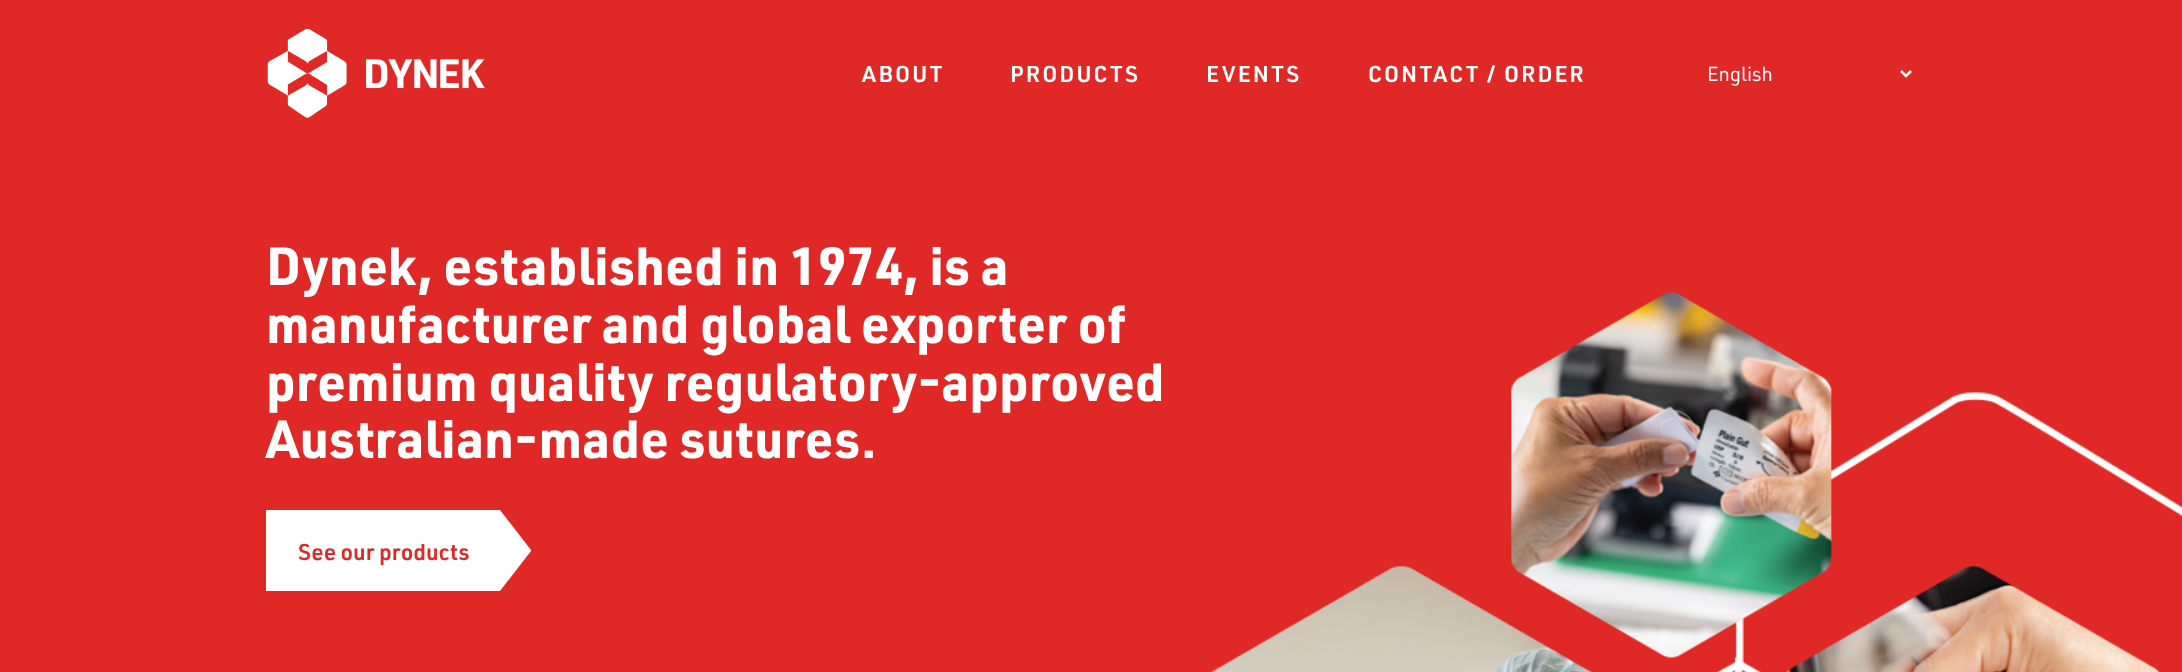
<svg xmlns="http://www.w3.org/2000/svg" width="2182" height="672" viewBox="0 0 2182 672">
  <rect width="100%" height="100%" fill="#e02926"/>
  <image x="267" y="29" width="218" height="89" href="img1.png"/>
  <text x="862" y="82" font-family="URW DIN" font-size="22.5" font-weight="600" letter-spacing="1.9" fill="#ffffff">ABOUT</text>
  <text x="1010" y="82" font-family="URW DIN" font-size="22.5" font-weight="600" letter-spacing="1.9" fill="#ffffff">PRODUCTS</text>
  <text x="1206" y="82" font-family="URW DIN" font-size="22.5" font-weight="600" letter-spacing="1.9" fill="#ffffff">EVENTS</text>
  <text x="1368" y="82" font-family="URW DIN" font-size="22.5" font-weight="600" letter-spacing="1.9" fill="#ffffff">CONTACT / ORDER</text>
  <path d="M1901 71L1906 76L1911 71" fill="none" stroke="#ffffff" stroke-width="2.5"/>
  <text x="1707" y="81" font-family="URW DIN" font-size="20" fill="#ffffff">English</text>
  <text x="266" y="285" font-family="URW DIN" font-size="52.5" font-weight="bold" fill="#ffffff">Dynek, established in 1974, is a</text>
  <text x="266" y="343" font-family="URW DIN" font-size="52.5" font-weight="bold" fill="#ffffff">manufacturer and global exporter of</text>
  <text x="266" y="401" font-family="URW DIN" font-size="52.5" font-weight="bold" fill="#ffffff">premium quality regulatory-approved</text>
  <text x="266" y="458" font-family="URW DIN" font-size="52.5" font-weight="bold" fill="#ffffff">Australian-made sutures.</text>
  <path d="M266 591V510H500L531 550V551L500 591Z" fill="#ffffff"/>
  <text x="298" y="560" font-family="URW DIN" font-size="22.5" font-weight="600" fill="#e02926">See our products</text>
  <image x="1210" y="292" width="972" height="380" href="img2.png"/>
</svg>
